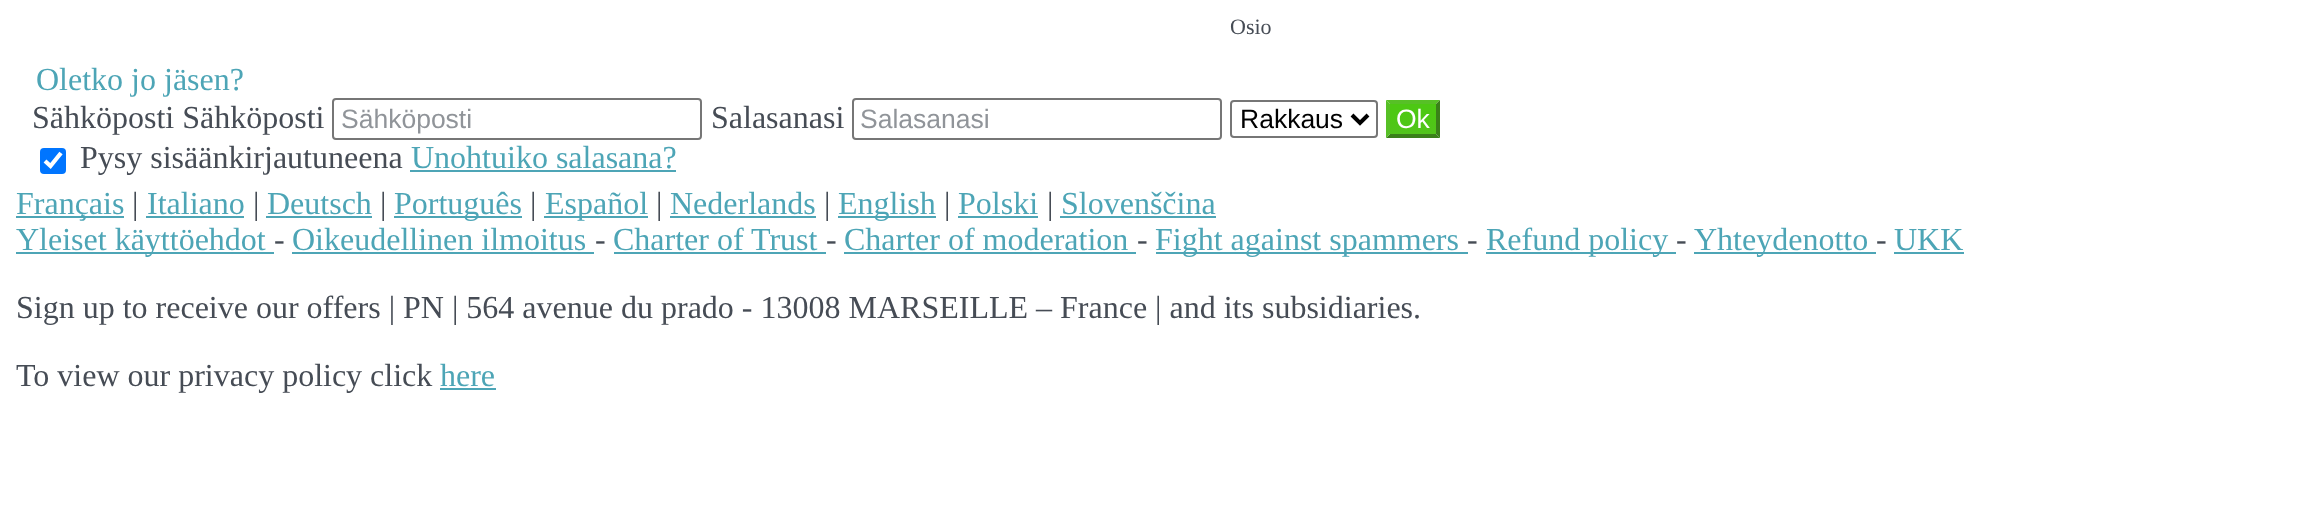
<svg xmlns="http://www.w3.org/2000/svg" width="2303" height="520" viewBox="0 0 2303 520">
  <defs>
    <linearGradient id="g1" gradientUnits="userSpaceOnUse" x1="1413" y1="104" x2="1413" y2="134"><stop offset="0.4" stop-color="#4dc813"/><stop offset="1" stop-color="#52c41c"/></linearGradient>
  </defs>
  <rect width="100%" height="100%" fill="#ffffff"/>
  <text x="32" y="128" font-family="Liberation Serif" font-size="32" fill="#464c55">Sähköposti Sähköposti</text>
  <rect x="333" y="99" width="368" height="40" rx="3" fill="none" stroke="#767676" stroke-width="2"/>
  <text x="341" y="128" font-family="Liberation Sans" font-size="26.5" fill="#909499">Sähköposti</text>
  <text x="711" y="128" font-family="Liberation Serif" font-size="32" fill="#464c55">Salasanasi</text>
  <rect x="853" y="99" width="368" height="40" rx="3" fill="none" stroke="#767676" stroke-width="2"/>
  <text x="860" y="128" font-family="Liberation Sans" font-size="26.5" fill="#909499">Salasanasi</text>
  <text x="1230" y="34" font-family="Liberation Serif" font-size="22" fill="#464c55">Osio</text>
  <rect x="1231" y="101" width="146" height="36" rx="3" fill="none" stroke="#767676" stroke-width="2"/>
  <path d="M1352 115L1360 123L1368 115" fill="none" stroke="#000000" stroke-width="4"/>
  <text x="1240" y="128" font-family="Liberation Sans" font-size="26.5" fill="#000000">Rakkaus</text>
  <rect x="1390" y="104" width="46" height="30" fill="url(#g1)"/>
  <path d="M1386 100H1440L1436 104H1390Z" fill="#57c026"/>
  <path d="M1440 100V138L1436 134V104Z" fill="#3a8019"/>
  <path d="M1440 138H1386L1390 134H1436Z" fill="#3a8019"/>
  <path d="M1386 138V100L1390 104V134Z" fill="#57c026"/>
  <text x="1396" y="128" font-family="Liberation Sans" font-size="26.5" fill="#ffffff">Ok</text>
  <text x="36" y="90" font-family="Liberation Serif" font-size="32" fill="#4da5b6">Oletko jo jäsen?</text>
  <rect x="40" y="148" width="26" height="26" rx="4" fill="#0075ff"/>
  <path d="M45 161L50.5 166L61 153" fill="none" stroke="#ffffff" stroke-width="4.2"/>
  <text x="80" y="168" font-family="Liberation Serif" font-size="32" fill="#464c55">Pysy sisäänkirjautuneena</text>
  <text x="411" y="168" font-family="Liberation Serif" font-size="32" fill="#4da5b6">Unohtuiko salasana?</text>
  <rect x="410" y="170" width="266" height="2" fill="#4da5b6"/>
  <rect x="16" y="216" width="108" height="2" fill="#4da5b6"/>
  <text x="16" y="214" font-family="Liberation Serif" font-size="32" fill="#4da5b6">Français</text>
  <text x="132" y="214" font-family="Liberation Serif" font-size="32" fill="#464c55">|</text>
  <text x="147" y="214" font-family="Liberation Serif" font-size="32" fill="#4da5b6">Italiano</text>
  <rect x="146" y="216" width="98" height="2" fill="#4da5b6"/>
  <text x="253" y="214" font-family="Liberation Serif" font-size="32" fill="#464c55">|</text>
  <text x="267" y="214" font-family="Liberation Serif" font-size="32" fill="#4da5b6">Deutsch</text>
  <rect x="266" y="216" width="106" height="2" fill="#4da5b6"/>
  <text x="380" y="214" font-family="Liberation Serif" font-size="32" fill="#464c55">|</text>
  <rect x="394" y="216" width="128" height="2" fill="#4da5b6"/>
  <text x="394" y="214" font-family="Liberation Serif" font-size="32" fill="#4da5b6">Português</text>
  <text x="530" y="214" font-family="Liberation Serif" font-size="32" fill="#464c55">|</text>
  <rect x="544" y="216" width="104" height="2" fill="#4da5b6"/>
  <text x="545" y="214" font-family="Liberation Serif" font-size="32" fill="#4da5b6">Español</text>
  <text x="656" y="214" font-family="Liberation Serif" font-size="32" fill="#464c55">|</text>
  <text x="670" y="214" font-family="Liberation Serif" font-size="32" fill="#4da5b6">Nederlands</text>
  <rect x="670" y="216" width="146" height="2" fill="#4da5b6"/>
  <text x="824" y="214" font-family="Liberation Serif" font-size="32" fill="#464c55">|</text>
  <rect x="838" y="216" width="98" height="2" fill="#4da5b6"/>
  <text x="838" y="214" font-family="Liberation Serif" font-size="32" fill="#4da5b6">English</text>
  <text x="944" y="214" font-family="Liberation Serif" font-size="32" fill="#464c55">|</text>
  <text x="958" y="214" font-family="Liberation Serif" font-size="32" fill="#4da5b6">Polski</text>
  <rect x="958" y="216" width="80" height="2" fill="#4da5b6"/>
  <text x="1047" y="214" font-family="Liberation Serif" font-size="32" fill="#464c55">|</text>
  <text x="1061" y="214" font-family="Liberation Serif" font-size="32" fill="#4da5b6">Slovenščina</text>
  <rect x="1060" y="216" width="156" height="2" fill="#4da5b6"/>
  <rect x="16" y="252" width="258" height="2" fill="#4da5b6"/>
  <text x="16" y="250" font-family="Liberation Serif" font-size="32" fill="#4da5b6">Yleiset käyttöehdot</text>
  <text x="274" y="250" font-family="Liberation Serif" font-size="32" fill="#464c55">-</text>
  <text x="292" y="250" font-family="Liberation Serif" font-size="32" fill="#4da5b6">Oikeudellinen ilmoitus</text>
  <rect x="292" y="252" width="302" height="2" fill="#4da5b6"/>
  <text x="595" y="250" font-family="Liberation Serif" font-size="32" fill="#464c55">-</text>
  <text x="613" y="250" font-family="Liberation Serif" font-size="32" fill="#4da5b6">Charter of Trust</text>
  <rect x="614" y="252" width="212" height="2" fill="#4da5b6"/>
  <text x="826" y="250" font-family="Liberation Serif" font-size="32" fill="#464c55">-</text>
  <text x="844" y="250" font-family="Liberation Serif" font-size="32" fill="#4da5b6">Charter of moderation</text>
  <rect x="844" y="252" width="292" height="2" fill="#4da5b6"/>
  <text x="1137" y="250" font-family="Liberation Serif" font-size="32" fill="#464c55">-</text>
  <rect x="1156" y="252" width="312" height="2" fill="#4da5b6"/>
  <text x="1155" y="250" font-family="Liberation Serif" font-size="32" fill="#4da5b6">Fight against spammers</text>
  <text x="1467" y="250" font-family="Liberation Serif" font-size="32" fill="#464c55">-</text>
  <rect x="1486" y="252" width="190" height="2" fill="#4da5b6"/>
  <text x="1486" y="250" font-family="Liberation Serif" font-size="32" fill="#4da5b6">Refund policy</text>
  <text x="1676" y="250" font-family="Liberation Serif" font-size="32" fill="#464c55">-</text>
  <rect x="1694" y="252" width="182" height="2" fill="#4da5b6"/>
  <text x="1694" y="250" font-family="Liberation Serif" font-size="32" fill="#4da5b6">Yhteydenotto</text>
  <text x="1876" y="250" font-family="Liberation Serif" font-size="32" fill="#464c55">-</text>
  <text x="1894" y="250" font-family="Liberation Serif" font-size="32" fill="#4da5b6">UKK</text>
  <rect x="1894" y="252" width="70" height="2" fill="#4da5b6"/>
  <text x="16" y="318" font-family="Liberation Serif" font-size="32" fill="#464c55">Sign up to receive our offers | PN | 564 avenue du prado - 13008 MARSEILLE – France | and its subsidiaries.</text>
  <text x="16" y="386" font-family="Liberation Serif" font-size="32" fill="#464c55">To view our privacy policy click</text>
  <text x="440" y="386" font-family="Liberation Serif" font-size="32" fill="#4da5b6">here</text>
  <rect x="440" y="388" width="56" height="2" fill="#4da5b6"/>
</svg>
